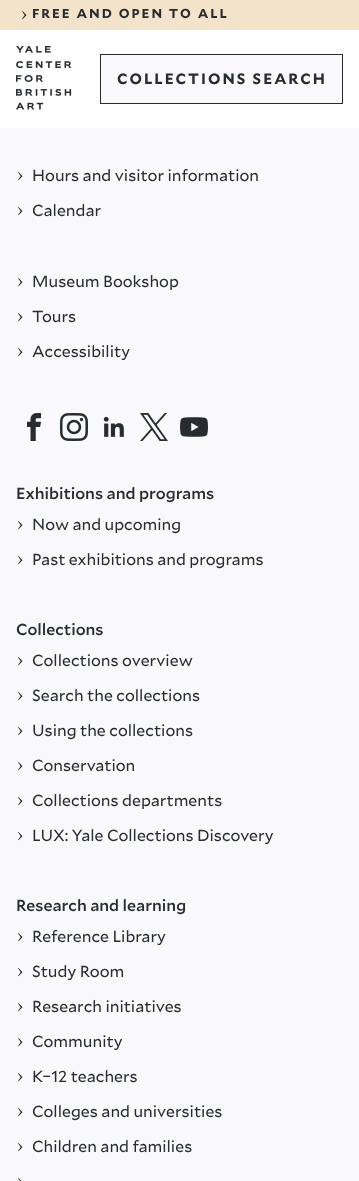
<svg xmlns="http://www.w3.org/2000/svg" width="359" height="1181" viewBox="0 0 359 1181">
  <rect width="100%" height="100%" fill="#f9f9fc"/>
  <rect x="0" y="0" width="359" height="30" fill="#f4e3cb"/>
  <image x="22" y="11" width="5" height="9" href="img1.png"/>
  <text x="32" y="18" font-family="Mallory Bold" font-size="13" font-weight="bold" letter-spacing="2" fill="#272c30">FREE AND OPEN TO ALL</text>
  <rect x="0" y="30" width="359" height="98" fill="#ffffff"/>
  <image x="16" y="46" width="56" height="64" href="img2.png"/>
  <rect x="100.5" y="54.5" width="242" height="49" fill="#f9f9fc" stroke="#272c30"/>
  <text x="117" y="84" font-family="Mallory Bold" font-size="15" font-weight="bold" letter-spacing="2" fill="#272c30">COLLECTIONS SEARCH</text>
  <image x="18" y="172" width="5" height="9" href="img3.png"/>
  <text x="32" y="181" font-family="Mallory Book" font-size="16" fill="#272c30">Hours and visitor information</text>
  <image x="18" y="207" width="5" height="9" href="img3.png"/>
  <text x="32" y="216" font-family="Mallory Book" font-size="16" fill="#272c30">Calendar</text>
  <image x="18" y="278" width="5" height="9" href="img3.png"/>
  <text x="32" y="287" font-family="Mallory Book" font-size="16" fill="#272c30">Museum Bookshop</text>
  <image x="18" y="313" width="5" height="9" href="img3.png"/>
  <text x="32" y="322" font-family="Mallory Book" font-size="16" fill="#272c30">Tours</text>
  <image x="18" y="348" width="5" height="9" href="img3.png"/>
  <text x="32" y="357" font-family="Mallory Book" font-size="16" fill="#272c30">Accessibility</text>
  <image x="27" y="413" width="14" height="28" href="img4.png"/>
  <image x="60" y="413" width="28" height="28" href="img5.png"/>
  <image x="103" y="416" width="21" height="21" href="img6.png"/>
  <image x="140" y="413" width="28" height="28" href="img7.png"/>
  <image x="180" y="417" width="28" height="20" href="img8.png"/>
  <text x="16" y="499" font-family="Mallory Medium" font-size="16" font-weight="500" fill="#272c30">Exhibitions and programs</text>
  <image x="18" y="521" width="5" height="9" href="img3.png"/>
  <text x="32" y="530" font-family="Mallory Book" font-size="16" fill="#272c30">Now and upcoming</text>
  <image x="18" y="556" width="5" height="9" href="img3.png"/>
  <text x="32" y="565" font-family="Mallory Book" font-size="16" fill="#272c30">Past exhibitions and programs</text>
  <text x="16" y="635" font-family="Mallory Medium" font-size="16" font-weight="500" fill="#272c30">Collections</text>
  <image x="18" y="657" width="5" height="9" href="img3.png"/>
  <text x="32" y="666" font-family="Mallory Book" font-size="16" fill="#272c30">Collections overview</text>
  <image x="18" y="692" width="5" height="9" href="img3.png"/>
  <text x="32" y="701" font-family="Mallory Book" font-size="16" fill="#272c30">Search the collections</text>
  <image x="18" y="727" width="5" height="9" href="img3.png"/>
  <text x="32" y="736" font-family="Mallory Book" font-size="16" fill="#272c30">Using the collections</text>
  <image x="18" y="762" width="5" height="9" href="img3.png"/>
  <text x="32" y="771" font-family="Mallory Book" font-size="16" fill="#272c30">Conservation</text>
  <image x="18" y="797" width="5" height="9" href="img3.png"/>
  <text x="32" y="806" font-family="Mallory Book" font-size="16" fill="#272c30">Collections departments</text>
  <image x="18" y="832" width="5" height="9" href="img3.png"/>
  <text x="32" y="841" font-family="Mallory Book" font-size="16" fill="#272c30">LUX: Yale Collections Discovery</text>
  <text x="16" y="911" font-family="Mallory Medium" font-size="16" font-weight="500" fill="#272c30">Research and learning</text>
  <image x="18" y="933" width="5" height="9" href="img3.png"/>
  <text x="32" y="942" font-family="Mallory Book" font-size="16" fill="#272c30">Reference Library</text>
  <image x="18" y="968" width="5" height="9" href="img3.png"/>
  <text x="32" y="977" font-family="Mallory Book" font-size="16" fill="#272c30">Study Room</text>
  <image x="18" y="1003" width="5" height="9" href="img3.png"/>
  <text x="32" y="1012" font-family="Mallory Book" font-size="16" fill="#272c30">Research initiatives</text>
  <image x="18" y="1038" width="5" height="9" href="img3.png"/>
  <text x="32" y="1047" font-family="Mallory Book" font-size="16" fill="#272c30">Community</text>
  <image x="18" y="1073" width="5" height="9" href="img3.png"/>
  <text x="32" y="1082" font-family="Mallory Book" font-size="16" fill="#272c30">K–12 teachers</text>
  <image x="18" y="1108" width="5" height="9" href="img3.png"/>
  <text x="32" y="1117" font-family="Mallory Book" font-size="16" fill="#272c30">Colleges and universities</text>
  <image x="18" y="1143" width="5" height="9" href="img3.png"/>
  <text x="32" y="1152" font-family="Mallory Book" font-size="16" fill="#272c30">Children and families</text>
  <image x="18" y="1178" width="4" height="3" href="img9.png"/>
</svg>
